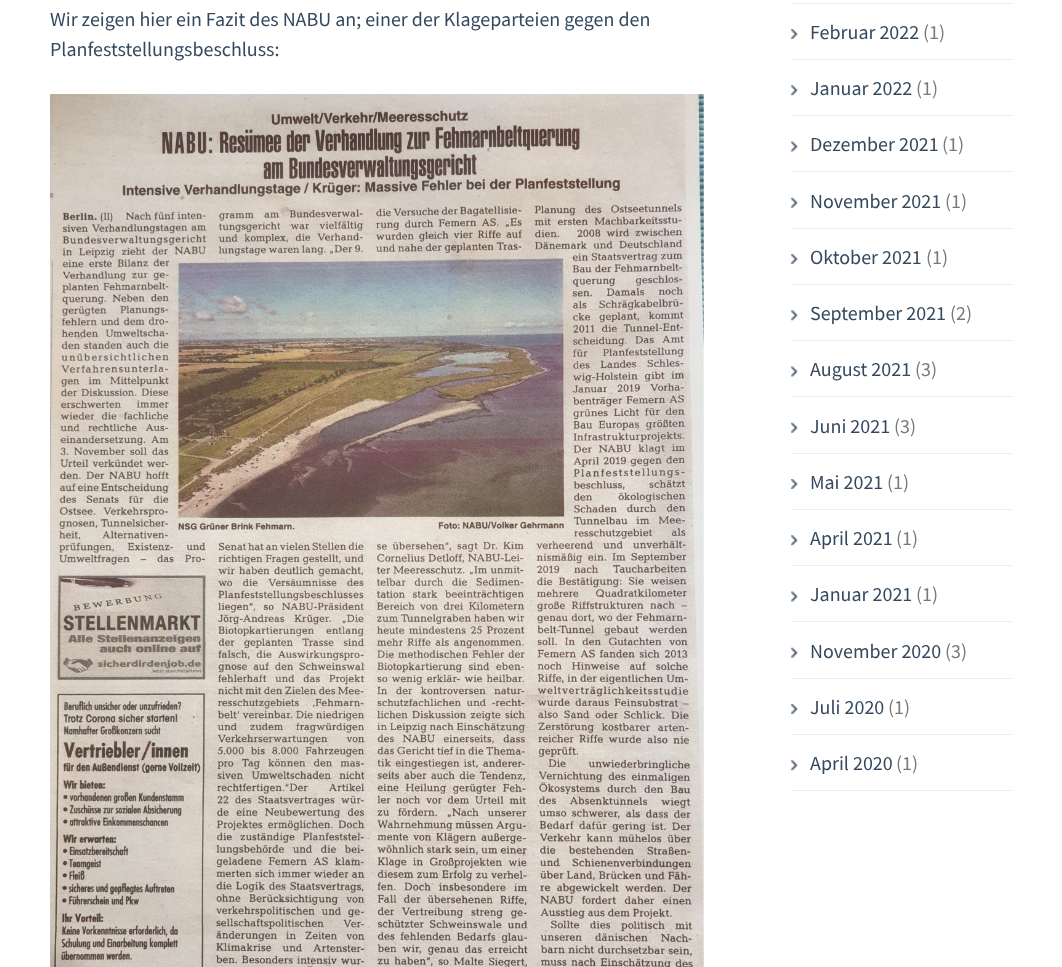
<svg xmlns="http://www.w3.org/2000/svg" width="1062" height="967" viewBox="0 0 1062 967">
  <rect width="100%" height="100%" fill="#ffffff"/>
  <text x="50" y="26" font-family="Source Sans Pro" font-size="20" fill="#34495e">Wir zeigen hier ein Fazit des NABU an; einer der Klageparteien gegen den</text>
  <text x="50" y="56" font-family="Source Sans Pro" font-size="20" fill="#34495e">Planfeststellungsbeschluss:</text>
  <image x="50" y="94" width="654" height="873" href="img1.png"/>
  <rect x="791" y="3" width="222" height="1" fill="#ecf0f1"/>
  <rect x="791" y="59" width="222" height="1" fill="#ecf0f1"/>
  <image x="791" y="29" width="7" height="10" href="img2.png"/>
  <text x="810" y="39" font-family="Source Sans Pro" font-size="20" fill="#34495e">Februar 2022</text>
  <text x="923" y="39" font-family="Source Sans Pro" font-size="20" fill="#797979">(1)</text>
  <rect x="791" y="115" width="222" height="1" fill="#ecf0f1"/>
  <image x="791" y="85" width="7" height="11" href="img3.png"/>
  <text x="810" y="95" font-family="Source Sans Pro" font-size="20" fill="#34495e">Januar 2022</text>
  <text x="916" y="95" font-family="Source Sans Pro" font-size="20" fill="#797979">(1)</text>
  <rect x="791" y="171" width="222" height="1" fill="#ecf0f1"/>
  <image x="791" y="141" width="7" height="11" href="img4.png"/>
  <text x="810" y="151" font-family="Source Sans Pro" font-size="20" fill="#34495e">Dezember 2021</text>
  <text x="942" y="151" font-family="Source Sans Pro" font-size="20" fill="#797979">(1)</text>
  <rect x="791" y="228" width="222" height="1" fill="#ecf0f1"/>
  <image x="791" y="197" width="7" height="11" href="img5.png"/>
  <text x="810" y="208" font-family="Source Sans Pro" font-size="20" fill="#34495e">November 2021</text>
  <text x="945" y="208" font-family="Source Sans Pro" font-size="20" fill="#797979">(1)</text>
  <rect x="791" y="284" width="222" height="1" fill="#ecf0f1"/>
  <image x="791" y="254" width="7" height="10" href="img6.png"/>
  <text x="810" y="264" font-family="Source Sans Pro" font-size="20" fill="#34495e">Oktober 2021</text>
  <text x="926" y="264" font-family="Source Sans Pro" font-size="20" fill="#797979">(1)</text>
  <rect x="791" y="340" width="222" height="1" fill="#ecf0f1"/>
  <image x="791" y="310" width="7" height="11" href="img3.png"/>
  <text x="810" y="320" font-family="Source Sans Pro" font-size="20" fill="#34495e">September 2021</text>
  <text x="950" y="320" font-family="Source Sans Pro" font-size="20" fill="#797979">(2)</text>
  <rect x="791" y="396" width="222" height="1" fill="#ecf0f1"/>
  <image x="791" y="366" width="7" height="11" href="img4.png"/>
  <text x="810" y="376" font-family="Source Sans Pro" font-size="20" fill="#34495e">August 2021</text>
  <text x="915" y="376" font-family="Source Sans Pro" font-size="20" fill="#797979">(3)</text>
  <rect x="791" y="453" width="222" height="1" fill="#ecf0f1"/>
  <image x="791" y="422" width="7" height="11" href="img5.png"/>
  <text x="810" y="433" font-family="Source Sans Pro" font-size="20" fill="#34495e">Juni 2021</text>
  <text x="894" y="433" font-family="Source Sans Pro" font-size="20" fill="#797979">(3)</text>
  <rect x="791" y="509" width="222" height="1" fill="#ecf0f1"/>
  <image x="791" y="479" width="7" height="10" href="img2.png"/>
  <text x="810" y="489" font-family="Source Sans Pro" font-size="20" fill="#34495e">Mai 2021</text>
  <text x="887" y="489" font-family="Source Sans Pro" font-size="20" fill="#797979">(1)</text>
  <rect x="791" y="565" width="222" height="1" fill="#ecf0f1"/>
  <image x="791" y="535" width="7" height="11" href="img3.png"/>
  <text x="810" y="545" font-family="Source Sans Pro" font-size="20" fill="#34495e">April 2021</text>
  <text x="896" y="545" font-family="Source Sans Pro" font-size="20" fill="#797979">(1)</text>
  <rect x="791" y="621" width="222" height="1" fill="#ecf0f1"/>
  <image x="791" y="591" width="7" height="11" href="img4.png"/>
  <text x="810" y="601" font-family="Source Sans Pro" font-size="20" fill="#34495e">Januar 2021</text>
  <text x="916" y="601" font-family="Source Sans Pro" font-size="20" fill="#797979">(1)</text>
  <rect x="791" y="678" width="222" height="1" fill="#ecf0f1"/>
  <image x="791" y="647" width="7" height="11" href="img5.png"/>
  <text x="810" y="658" font-family="Source Sans Pro" font-size="20" fill="#34495e">November 2020</text>
  <text x="945" y="658" font-family="Source Sans Pro" font-size="20" fill="#797979">(3)</text>
  <rect x="791" y="734" width="222" height="1" fill="#ecf0f1"/>
  <image x="791" y="704" width="7" height="10" href="img2.png"/>
  <text x="810" y="714" font-family="Source Sans Pro" font-size="20" fill="#34495e">Juli 2020</text>
  <text x="888" y="714" font-family="Source Sans Pro" font-size="20" fill="#797979">(1)</text>
  <rect x="791" y="790" width="222" height="1" fill="#ecf0f1"/>
  <image x="791" y="760" width="7" height="11" href="img3.png"/>
  <text x="810" y="770" font-family="Source Sans Pro" font-size="20" fill="#34495e">April 2020</text>
  <text x="896" y="770" font-family="Source Sans Pro" font-size="20" fill="#797979">(1)</text>
</svg>
